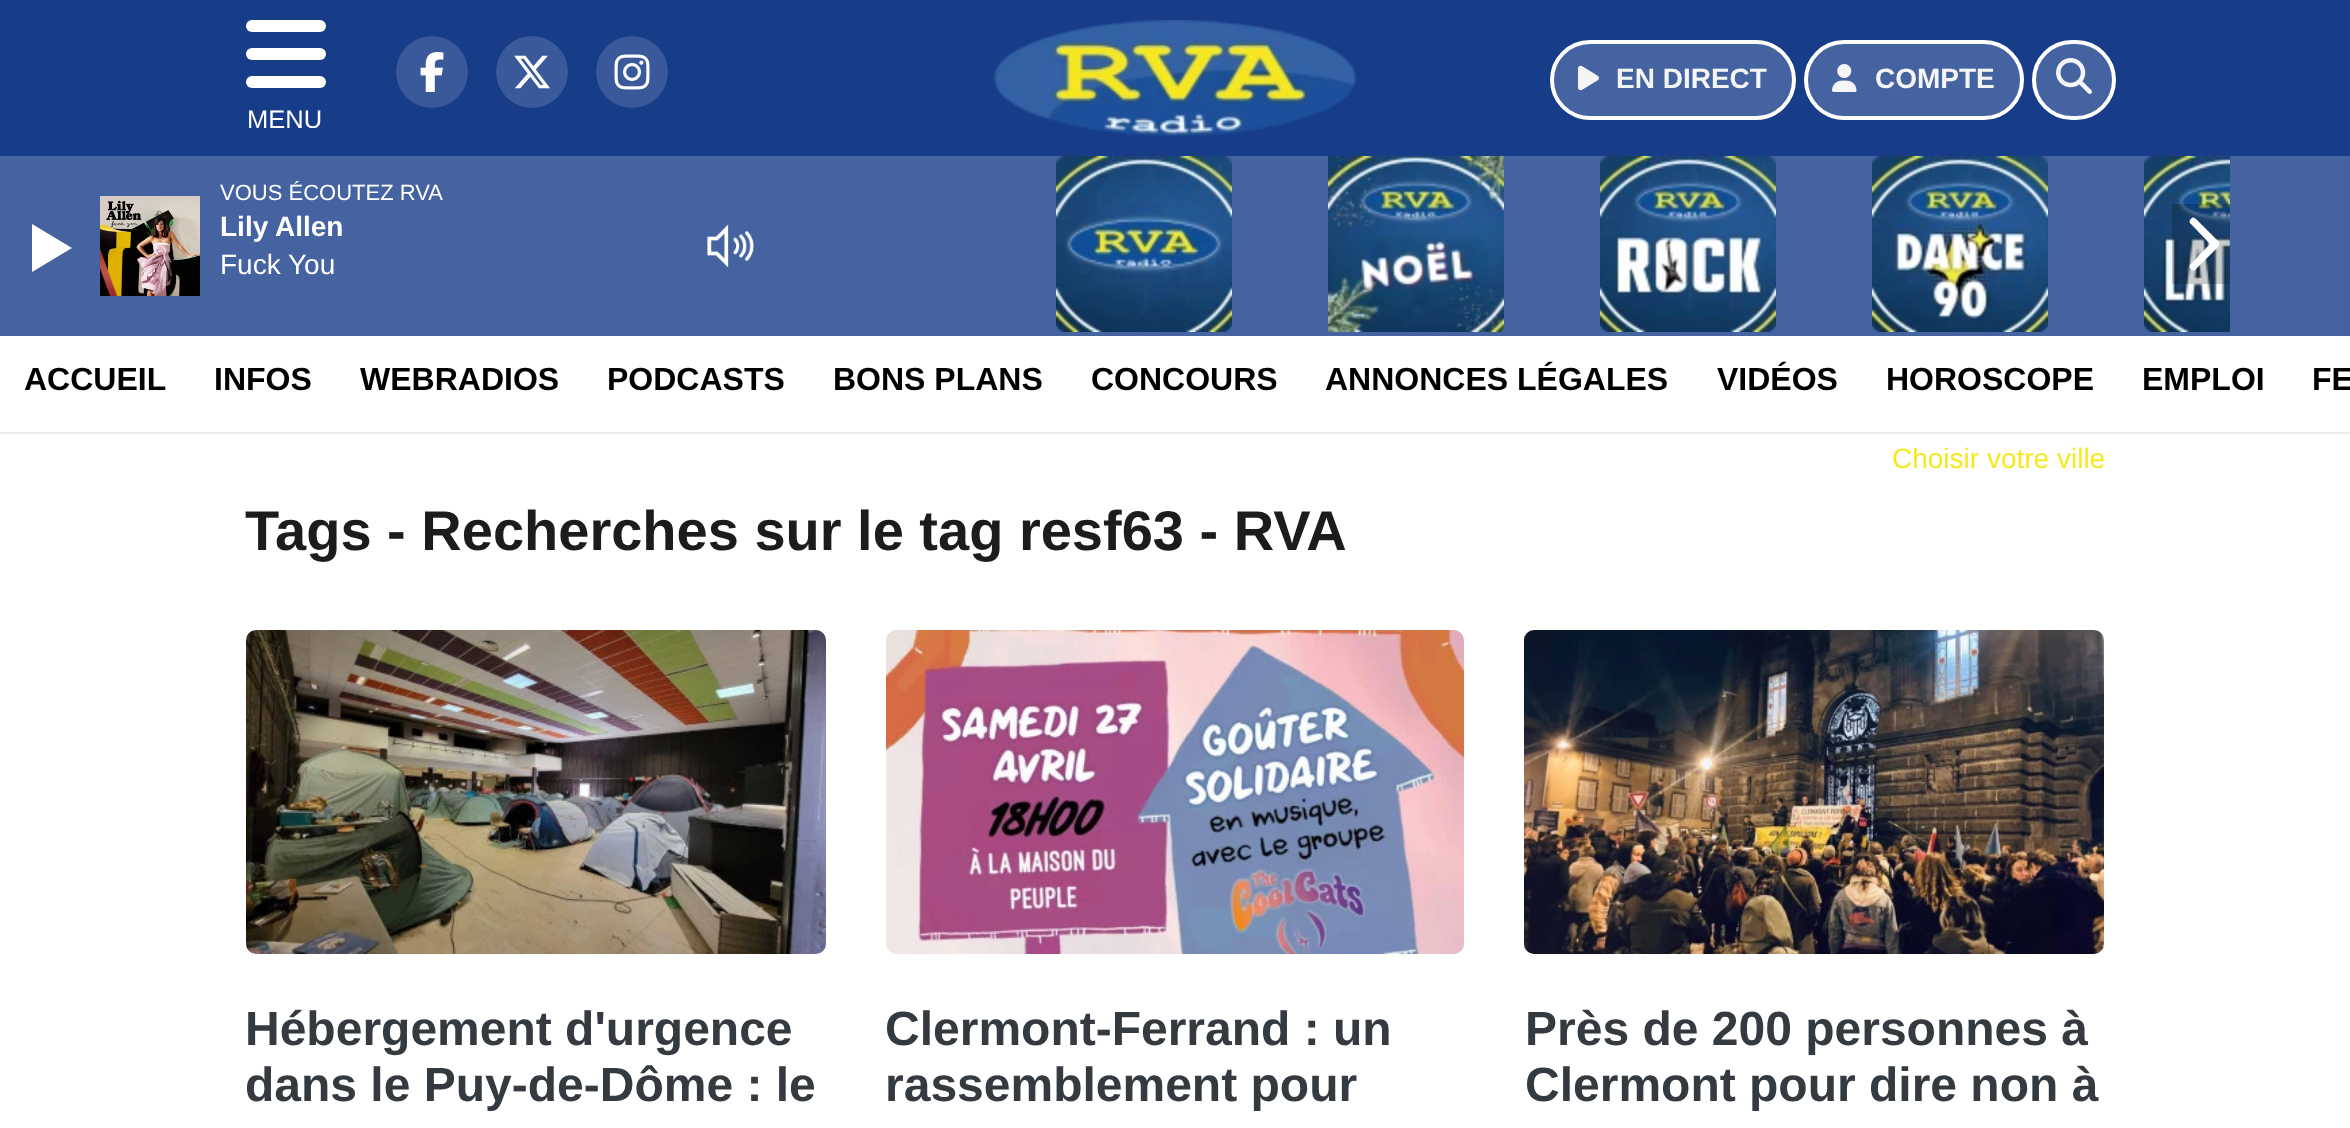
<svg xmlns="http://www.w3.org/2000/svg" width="2350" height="1128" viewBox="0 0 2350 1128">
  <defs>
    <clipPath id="clip1"><rect x="246" y="20" width="80" height="108"/></clipPath>
  </defs>
  <rect width="100%" height="100%" fill="#ffffff"/>
  <rect x="0" y="0" width="2350" height="156" fill="#173c88"/>
  <circle cx="432" cy="72" r="36" fill="#3a599a"/>
  <image x="420" y="52" width="24" height="40" href="img1.png"/>
  <circle cx="532" cy="72" r="36" fill="#3a599a"/>
  <image x="514" y="55" width="36" height="34" href="img2.png"/>
  <circle cx="632" cy="72" r="36" fill="#3a599a"/>
  <image x="614" y="54" width="36" height="36" href="img3.png"/>
  <image x="993" y="20" width="364" height="116" href="img4.png"/>
  <rect x="1552" y="42" width="242" height="76" rx="38" fill="#4563a0" stroke="#ffffff" stroke-width="4"/>
  <image x="1578" y="65" width="21" height="26" href="img5.png"/>
  <text x="1616" y="88" font-family="Liberation Sans" font-size="28" font-weight="bold" fill="#f5f5f5">EN DIRECT</text>
  <rect x="1806" y="42" width="216" height="76" rx="38" fill="#4563a0" stroke="#ffffff" stroke-width="4"/>
  <image x="1832" y="64" width="25" height="28" href="img6.png"/>
  <text x="1875" y="88" font-family="Liberation Sans" font-size="28" font-weight="bold" fill="#f5f5f5">COMPTE</text>
  <rect x="2034" y="42" width="80" height="76" rx="38" fill="#4563a0" stroke="#ffffff" stroke-width="4"/>
  <image x="2056" y="58" width="36" height="36" href="img7.png"/>
  <rect x="246" y="20" width="80" height="12" rx="6" fill="#ffffff"/>
  <rect x="246" y="48" width="80" height="12" rx="6" fill="#ffffff"/>
  <rect x="246" y="76" width="80" height="12" rx="6" fill="#ffffff"/>
  <g clip-path="url(#clip1)">
    <text x="247" y="128" font-family="Liberation Sans" font-size="25.5" fill="#ffffff">MENU</text>
  </g>
  <rect x="0" y="432" width="2350" height="2" fill="#eeeeee"/>
  <text x="24" y="390" font-family="Liberation Sans" font-size="32" font-weight="bold" fill="#000000">ACCUEIL</text>
  <text x="214" y="390" font-family="Liberation Sans" font-size="32" font-weight="bold" fill="#000000">INFOS</text>
  <text x="360" y="390" font-family="Liberation Sans" font-size="32" font-weight="bold" fill="#000000">WEBRADIOS</text>
  <text x="607" y="390" font-family="Liberation Sans" font-size="32" font-weight="bold" fill="#000000">PODCASTS</text>
  <text x="833" y="390" font-family="Liberation Sans" font-size="32" font-weight="bold" fill="#000000">BONS PLANS</text>
  <text x="1091" y="390" font-family="Liberation Sans" font-size="32" font-weight="bold" fill="#000000">CONCOURS</text>
  <text x="1325" y="390" font-family="Liberation Sans" font-size="32" font-weight="bold" fill="#000000">ANNONCES LÉGALES</text>
  <text x="1717" y="390" font-family="Liberation Sans" font-size="32" font-weight="bold" fill="#000000">VIDÉOS</text>
  <text x="1886" y="390" font-family="Liberation Sans" font-size="32" font-weight="bold" fill="#000000">HOROSCOPE</text>
  <text x="2142" y="390" font-family="Liberation Sans" font-size="32" font-weight="bold" fill="#000000">EMPLOI</text>
  <text x="2312" y="390" font-family="Liberation Sans" font-size="32" font-weight="bold" fill="#000000">FE</text>
  <text x="1892" y="468" font-family="Liberation Sans" font-size="28" fill="#f7e81e">Choisir votre ville</text>
  <text x="245" y="550" font-family="Liberation Sans" font-size="56" font-weight="bold" fill="#1c1c1c">Tags - Recherches sur le tag resf63 - RVA</text>
  <image x="246" y="630" width="580" height="324" href="img8.png"/>
  <text x="245" y="1045" font-family="Liberation Sans" font-size="48" font-weight="bold" fill="#343a40">Hébergement d'urgence</text>
  <text x="245" y="1101" font-family="Liberation Sans" font-size="48" font-weight="bold" fill="#343a40">dans le Puy-de-Dôme : le</text>
  <image x="886" y="630" width="578" height="324" href="img9.png"/>
  <text x="885" y="1045" font-family="Liberation Sans" font-size="48" font-weight="bold" fill="#343a40">Clermont-Ferrand : un</text>
  <text x="885" y="1101" font-family="Liberation Sans" font-size="48" font-weight="bold" fill="#343a40">rassemblement pour</text>
  <image x="1524" y="630" width="580" height="324" href="img10.png"/>
  <text x="1525" y="1045" font-family="Liberation Sans" font-size="48" font-weight="bold" fill="#343a40">Près de 200 personnes à</text>
  <text x="1525" y="1101" font-family="Liberation Sans" font-size="48" font-weight="bold" fill="#343a40">Clermont pour dire non à</text>
  <rect x="0" y="156" width="2350" height="180" fill="#4563a0"/>
  <text x="220" y="200" font-family="Liberation Sans" font-size="22" fill="#ffffff">VOUS ÉCOUTEZ RVA</text>
  <image x="100" y="196" width="100" height="100" href="img11.png"/>
  <text x="220" y="236" font-family="Liberation Sans" font-size="28" font-weight="bold" fill="#ffffff">Lily Allen</text>
  <text x="220" y="274" font-family="Liberation Sans" font-size="28" fill="#ffffff">Fuck You</text>
  <path d="M32 272V224L72 248Z" fill="#ffffff"/>
  <image x="707" y="224" width="47" height="44" href="img12.png"/>
  <image x="1056" y="156" width="176" height="176" href="img13.png"/>
  <image x="1328" y="156" width="176" height="176" href="img14.png"/>
  <image x="1600" y="156" width="176" height="176" href="img15.png"/>
  <image x="1872" y="156" width="176" height="176" href="img16.png"/>
  <image x="2144" y="156" width="86" height="176" href="img17.png"/>
  <rect x="2172" y="204" width="58" height="80" fill="#000000" fill-opacity="0.2"/>
  <path d="M2218 241C2220 243 2220 245 2218 247L2196 269C2194 271 2192 271 2191 269C2189 268 2189 265 2191 264L2210 244L2191 224C2189 223 2189 220 2191 219C2192 217 2194 217 2196 219Z" fill="#ffffff"/>
</svg>
